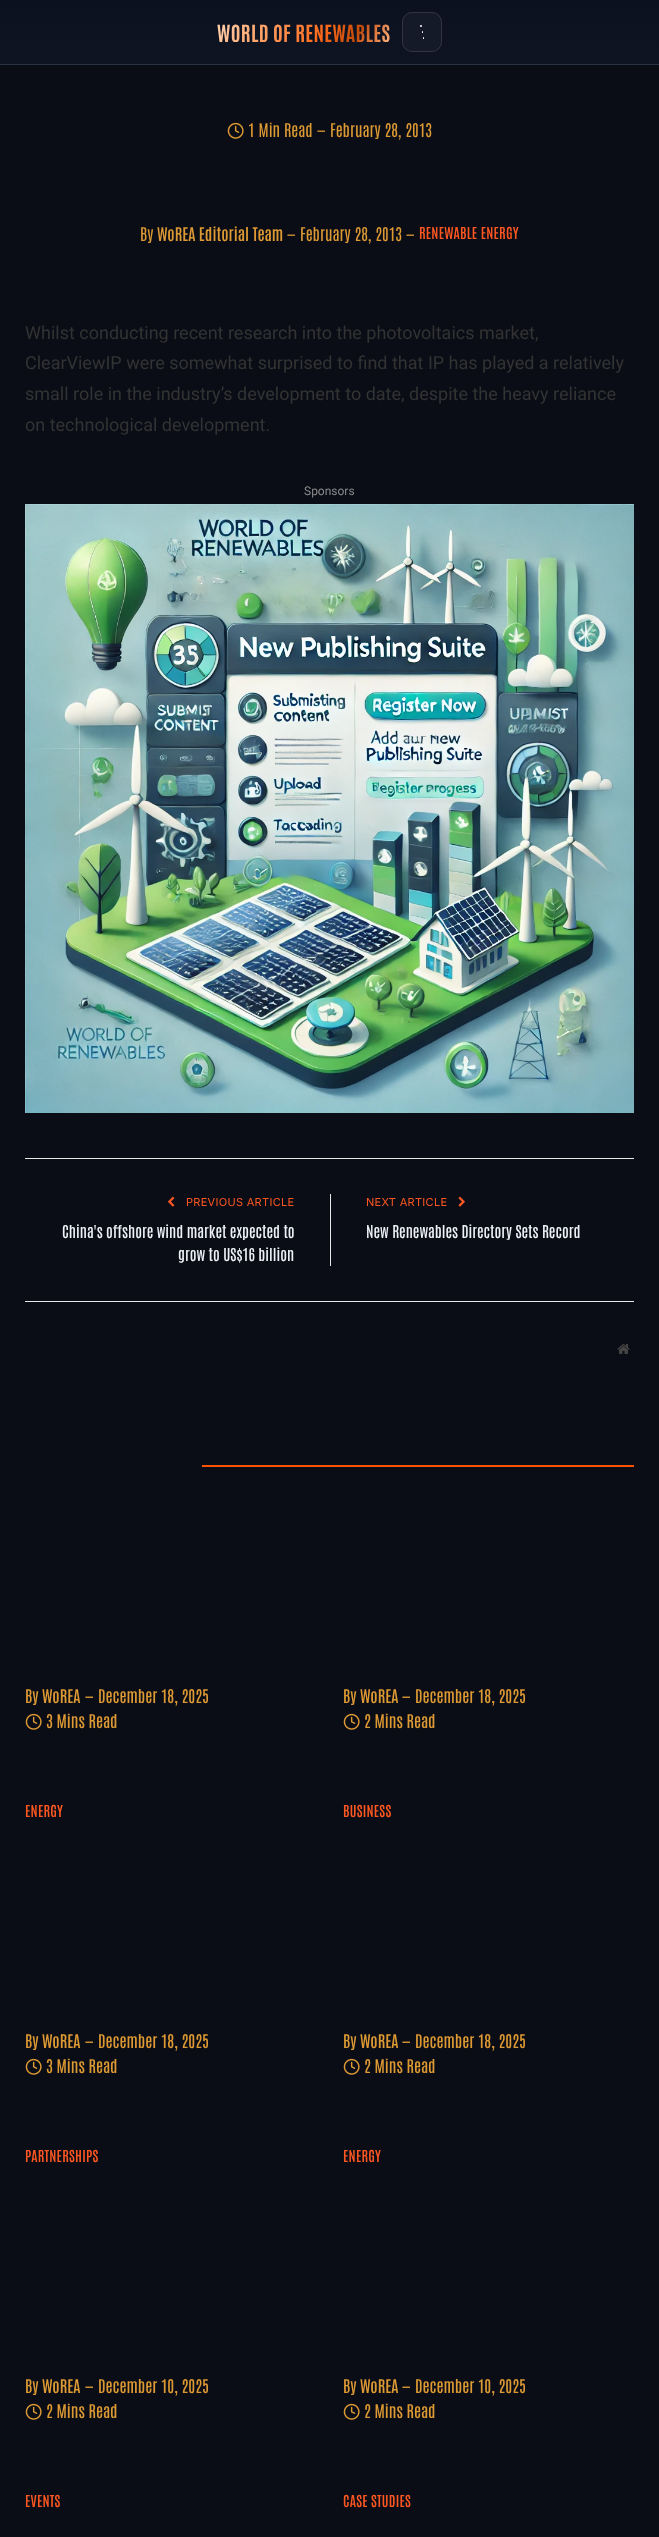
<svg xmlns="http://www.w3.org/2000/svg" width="659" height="2537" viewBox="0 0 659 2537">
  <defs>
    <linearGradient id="g1" gradientUnits="userSpaceOnUse" x1="330" y1="0" x2="330" y2="64"><stop offset="0" stop-color="#0c1120"/><stop offset="1" stop-color="#0f1422"/></linearGradient>
    <clipPath id="clip1"><rect x="217" y="22" width="173" height="20"/></clipPath>
    <linearGradient id="g2" gradientUnits="userSpaceOnUse" x1="234" y1="-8" x2="373" y2="72"><stop offset="0" stop-color="#ffd2b0"/><stop offset="0.2" stop-color="#ffb07a"/><stop offset="0.4" stop-color="#ff8b4a"/><stop offset="0.6" stop-color="#ff6a1a"/><stop offset="0.8" stop-color="#c24a0a"/><stop offset="1" stop-color="#ffb07a"/></linearGradient>
  </defs>
  <rect width="100%" height="100%" fill="#0a0d16"/>
  <rect x="0" y="64" width="659" height="1" fill="#2a3244"/>
  <rect x="0" y="0" width="659" height="64" fill="url(#g1)"/>
  <g clip-path="url(#clip1)">
    <text x="217" y="42" font-family="Antonio" font-size="20" font-weight="bold" letter-spacing="0.4" fill="url(#g2)">WORLD OF RENEWABLES</text>
  </g>
  <rect x="402" y="12" width="40" height="40" rx="10" fill="#151a28"/>
  <rect x="402.5" y="12.5" width="39" height="39" rx="9.5" fill="none" stroke="#ffffff" stroke-opacity="0.12"/>
  <circle cx="421" cy="26" r="1" fill="#ffffff"/>
  <rect x="422" y="31" width="1" height="2" rx="0.5" fill="#ffffff"/>
  <rect x="423" y="37" width="1" height="2" rx="0.5" fill="#ffffff"/>
  <image x="227" y="122" width="17" height="17" href="img1.png"/>
  <text x="248" y="137" font-family="Antonio" font-size="16" fill="#dd9933">1 Min Read</text>
  <text x="317" y="136" font-family="Antonio" font-size="15" fill="#dd9933">—</text>
  <text x="330" y="137" font-family="Antonio" font-size="16" fill="#dd9933">February 28, 2013</text>
  <text x="140" y="241" font-family="Antonio" font-size="16" fill="#dd9933">By</text>
  <text x="157" y="241" font-family="Antonio" font-size="16" font-weight="600" fill="#dd9933">WoREA Editorial Team</text>
  <text x="287" y="240" font-family="Antonio" font-size="15" fill="#dd9933">—</text>
  <text x="300" y="241" font-family="Antonio" font-size="16" fill="#dd9933">February 28, 2013</text>
  <text x="406" y="240" font-family="Antonio" font-size="15" fill="#dd9933">—</text>
  <text x="419" y="239" font-family="Antonio" font-size="14" font-weight="600" letter-spacing="0.25" fill="#ff5722">RENEWABLE ENERGY</text>
  <text x="25" y="339" font-family="Roboto" font-size="18" fill="#333333">Whilst conducting recent research into the photovoltaics market,</text>
  <text x="25" y="369" font-family="Roboto" font-size="18" fill="#333333">ClearViewIP were somewhat surprised to find that IP has played a relatively</text>
  <text x="25" y="400" font-family="Roboto" font-size="18" fill="#333333">small role in the industry’s development to date, despite the heavy reliance</text>
  <text x="25" y="431" font-family="Roboto" font-size="18" fill="#333333">on technological development.</text>
  <text x="304" y="495" font-family="Roboto" font-size="12" fill="#8a8a8a">Sponsors</text>
  <image x="25" y="504" width="609" height="609" href="img2.png"/>
  <rect x="25" y="1158" width="609" height="1" fill="#e8e8e8"/>
  <image x="168" y="1196" width="7" height="11" href="img3.png"/>
  <text x="186" y="1206" font-family="Inter" font-size="11" letter-spacing="0.3" fill="#ff5722">PREVIOUS ARTICLE</text>
  <text x="62" y="1238" font-family="Antonio" font-size="15" font-weight="500" fill="#eef2f8">China's offshore wind market expected to</text>
  <text x="178" y="1261" font-family="Antonio" font-size="15" font-weight="500" fill="#eef2f8">grow to US$16 billion</text>
  <rect x="330" y="1194" width="1" height="72" fill="#e8e8e8"/>
  <text x="366" y="1206" font-family="Inter" font-size="11" letter-spacing="0.3" fill="#ff5722">NEXT ARTICLE</text>
  <image x="458" y="1196" width="7" height="11" href="img4.png"/>
  <text x="366" y="1238" font-family="Antonio" font-size="15" font-weight="500" fill="#eef2f8">New Renewables Directory Sets Record</text>
  <rect x="25" y="1301" width="609" height="1" fill="#e8e8e8"/>
  <image x="617" y="1344" width="13" height="10" href="img5.png"/>
  <rect x="202" y="1465" width="432" height="2" fill="#ff5200"/>
  <text x="25" y="1703" font-family="Antonio" font-size="16" font-weight="500" fill="#dd9933">By</text>
  <text x="42" y="1703" font-family="Antonio" font-size="16" font-weight="600" fill="#dd9933">WoREA</text>
  <text x="85" y="1702" font-family="Antonio" font-size="15" font-weight="500" fill="#dd9933">—</text>
  <text x="98" y="1703" font-family="Antonio" font-size="16" font-weight="500" fill="#dd9933">December 18, 2025</text>
  <image x="25" y="1713" width="17" height="17" href="img1.png"/>
  <text x="46" y="1728" font-family="Antonio" font-size="16" font-weight="500" fill="#dd9933">3 Mins Read</text>
  <text x="25" y="1817" font-family="Antonio" font-size="14" font-weight="600" letter-spacing="0.25" fill="#ff5722">ENERGY</text>
  <text x="343" y="1703" font-family="Antonio" font-size="16" font-weight="500" fill="#dd9933">By</text>
  <text x="360" y="1703" font-family="Antonio" font-size="16" font-weight="600" fill="#dd9933">WoREA</text>
  <text x="402" y="1702" font-family="Antonio" font-size="15" font-weight="500" fill="#dd9933">—</text>
  <text x="415" y="1703" font-family="Antonio" font-size="16" font-weight="500" fill="#dd9933">December 18, 2025</text>
  <image x="343" y="1713" width="17" height="17" href="img1.png"/>
  <text x="364" y="1728" font-family="Antonio" font-size="16" font-weight="500" fill="#dd9933">2 Mins Read</text>
  <text x="343" y="1817" font-family="Antonio" font-size="14" font-weight="600" letter-spacing="0.25" fill="#ff5722">BUSINESS</text>
  <text x="25" y="2048" font-family="Antonio" font-size="16" font-weight="500" fill="#dd9933">By</text>
  <text x="42" y="2048" font-family="Antonio" font-size="16" font-weight="600" fill="#dd9933">WoREA</text>
  <text x="85" y="2047" font-family="Antonio" font-size="15" font-weight="500" fill="#dd9933">—</text>
  <text x="98" y="2048" font-family="Antonio" font-size="16" font-weight="500" fill="#dd9933">December 18, 2025</text>
  <image x="25" y="2058" width="17" height="17" href="img1.png"/>
  <text x="46" y="2073" font-family="Antonio" font-size="16" font-weight="500" fill="#dd9933">3 Mins Read</text>
  <text x="25" y="2162" font-family="Antonio" font-size="14" font-weight="600" letter-spacing="0.25" fill="#ff5722">PARTNERSHIPS</text>
  <text x="343" y="2048" font-family="Antonio" font-size="16" font-weight="500" fill="#dd9933">By</text>
  <text x="360" y="2048" font-family="Antonio" font-size="16" font-weight="600" fill="#dd9933">WoREA</text>
  <text x="402" y="2047" font-family="Antonio" font-size="15" font-weight="500" fill="#dd9933">—</text>
  <text x="415" y="2048" font-family="Antonio" font-size="16" font-weight="500" fill="#dd9933">December 18, 2025</text>
  <image x="343" y="2058" width="17" height="17" href="img1.png"/>
  <text x="364" y="2073" font-family="Antonio" font-size="16" font-weight="500" fill="#dd9933">2 Mins Read</text>
  <text x="343" y="2162" font-family="Antonio" font-size="14" font-weight="600" letter-spacing="0.25" fill="#ff5722">ENERGY</text>
  <text x="25" y="2393" font-family="Antonio" font-size="16" font-weight="500" fill="#dd9933">By</text>
  <text x="42" y="2393" font-family="Antonio" font-size="16" font-weight="600" fill="#dd9933">WoREA</text>
  <text x="85" y="2392" font-family="Antonio" font-size="15" font-weight="500" fill="#dd9933">—</text>
  <text x="98" y="2393" font-family="Antonio" font-size="16" font-weight="500" fill="#dd9933">December 10, 2025</text>
  <image x="25" y="2403" width="17" height="17" href="img1.png"/>
  <text x="46" y="2418" font-family="Antonio" font-size="16" font-weight="500" fill="#dd9933">2 Mins Read</text>
  <text x="25" y="2507" font-family="Antonio" font-size="14" font-weight="600" letter-spacing="0.25" fill="#ff5722">EVENTS</text>
  <text x="343" y="2393" font-family="Antonio" font-size="16" font-weight="500" fill="#dd9933">By</text>
  <text x="360" y="2393" font-family="Antonio" font-size="16" font-weight="600" fill="#dd9933">WoREA</text>
  <text x="402" y="2392" font-family="Antonio" font-size="15" font-weight="500" fill="#dd9933">—</text>
  <text x="415" y="2393" font-family="Antonio" font-size="16" font-weight="500" fill="#dd9933">December 10, 2025</text>
  <image x="343" y="2403" width="17" height="17" href="img1.png"/>
  <text x="364" y="2418" font-family="Antonio" font-size="16" font-weight="500" fill="#dd9933">2 Mins Read</text>
  <text x="343" y="2507" font-family="Antonio" font-size="14" font-weight="600" letter-spacing="0.25" fill="#ff5722">CASE STUDIES</text>
</svg>
